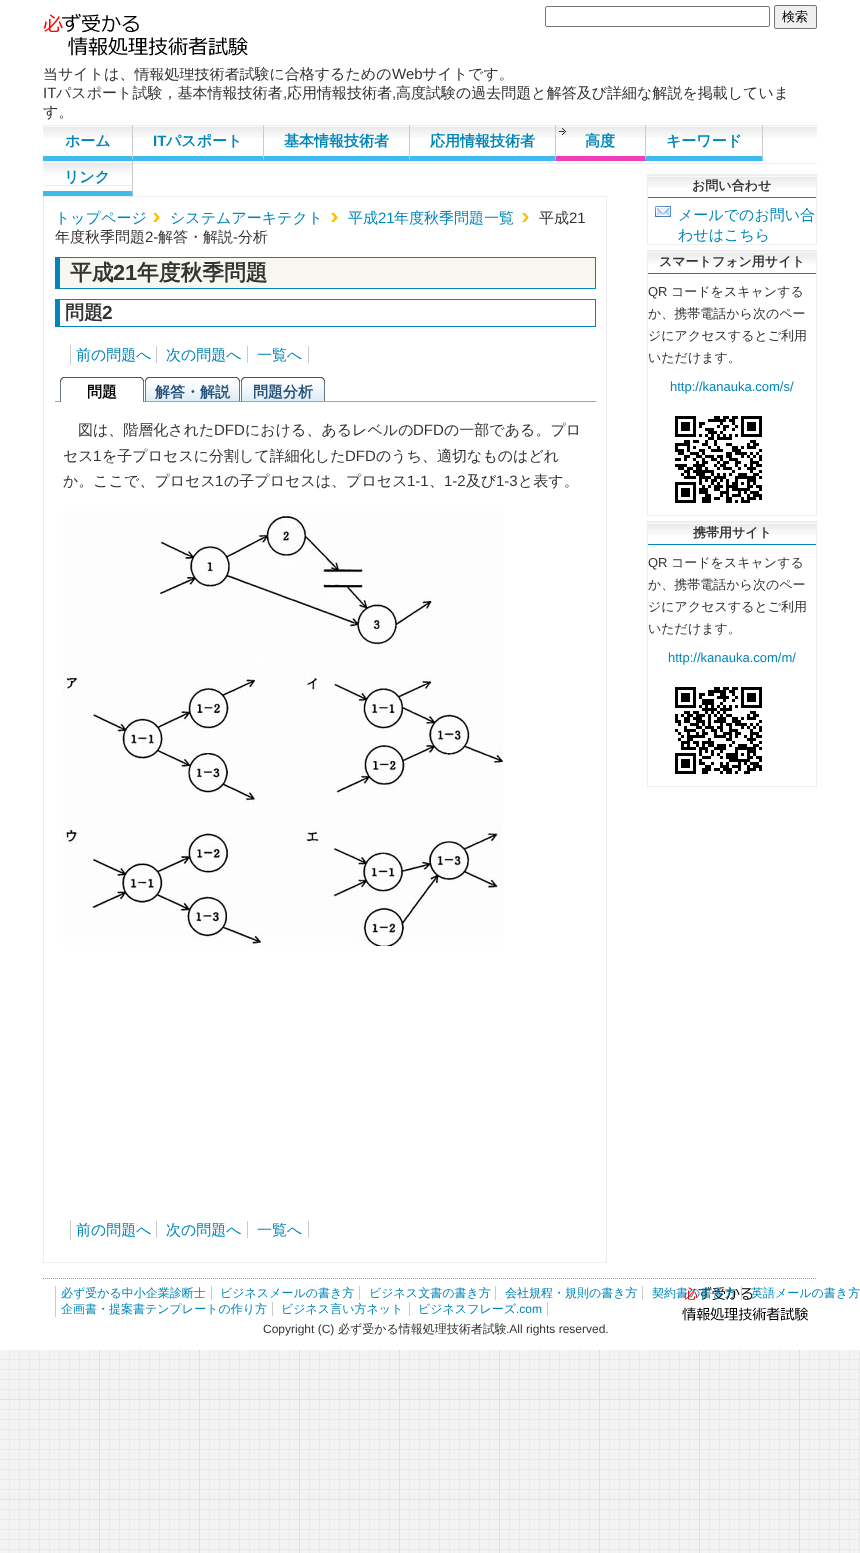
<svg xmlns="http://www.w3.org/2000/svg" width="860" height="1553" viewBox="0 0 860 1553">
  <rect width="100%" height="100%" fill="#ffffff"/>
  <image x="0" y="1350" width="860" height="203" href="img1.png"/>
  <text x="43" y="79" font-family="WenQuanYi Zen Hei" font-size="15" font-weight="500" fill="#333333">当サイトは、情報処理技術者試験に合格するための</text>
  <rect x="49" y="66" width="194" height="2" fill="#ffffff"/>
  <image x="43" y="13" width="205" height="43" href="img2.png"/>
  <rect x="545.5" y="6.5" width="224" height="20" rx="1.5" fill="none" stroke="#767676"/>
  <rect x="774.5" y="5.5" width="42" height="23" rx="1.5" fill="#efefef" stroke="#767676"/>
  <text x="782" y="21" font-family="WenQuanYi Zen Hei" font-size="13" font-weight="500" fill="#000000">検索</text>
  <text x="392" y="79" font-family="Liberation Sans" font-size="15" fill="#333333">Web</text>
  <text x="422" y="79" font-family="WenQuanYi Zen Hei" font-size="15" font-weight="500" fill="#333333">サイトです。</text>
  <text x="43" y="98" font-family="Liberation Sans" font-size="15" fill="#333333">IT</text>
  <text x="56" y="98" font-family="WenQuanYi Zen Hei" font-size="15" font-weight="500" fill="#333333">パスポート試験，基本情報技術者</text>
  <text x="283" y="98" font-family="Liberation Sans" font-size="15" fill="#333333">,</text>
  <text x="287" y="98" font-family="WenQuanYi Zen Hei" font-size="15" font-weight="500" fill="#333333">応用情報技術者</text>
  <text x="392" y="98" font-family="Liberation Sans" font-size="15" fill="#333333">,</text>
  <text x="396" y="98" font-family="WenQuanYi Zen Hei" font-size="15" font-weight="500" fill="#333333">高度試験の過去問題と解答及び詳細な解説を掲載していま</text>
  <text x="43" y="117" font-family="WenQuanYi Zen Hei" font-size="15" font-weight="500" fill="#333333">す。</text>
  <image x="43" y="125" width="774" height="13" href="img3.png"/>
  <rect x="133" y="163" width="684" height="1" fill="#eeeeee"/>
  <path d="M133 125V161L132 156V125Z" fill="#cccccc"/>
  <path d="M133 161H43V156H132Z" fill="#3ebaee"/>
  <text x="65" y="146" font-family="WenQuanYi Zen Hei" font-size="15" font-weight="bold" fill="#0086b9">ホーム</text>
  <path d="M264 125V161L263 156V125Z" fill="#cccccc"/>
  <path d="M264 161H133V156H263Z" fill="#3ebaee"/>
  <text x="153" y="146" font-family="Liberation Sans" font-size="15" font-weight="bold" fill="#0086b9">IT</text>
  <text x="166" y="146" font-family="WenQuanYi Zen Hei" font-size="15" font-weight="bold" fill="#0086b9">パスポート</text>
  <path d="M410 125V161L409 156V125Z" fill="#cccccc"/>
  <path d="M410 161H264V156H409Z" fill="#3ebaee"/>
  <text x="284" y="146" font-family="WenQuanYi Zen Hei" font-size="15" font-weight="bold" fill="#0086b9">基本情報技術者</text>
  <path d="M556 125V161L555 156V125Z" fill="#cccccc"/>
  <path d="M556 161H410V156H555Z" fill="#3ebaee"/>
  <text x="430" y="146" font-family="WenQuanYi Zen Hei" font-size="15" font-weight="bold" fill="#0086b9">応用情報技術者</text>
  <image x="559" y="128" width="8" height="7" href="img4.png"/>
  <path d="M646 125V161L645 156V125Z" fill="#cccccc"/>
  <path d="M646 161H556V156H645Z" fill="#ee3eb9"/>
  <text x="585" y="146" font-family="WenQuanYi Zen Hei" font-size="15" font-weight="bold" fill="#0086b9">高度</text>
  <path d="M763 125V161L762 156V125Z" fill="#cccccc"/>
  <path d="M763 161H646V156H762Z" fill="#3ebaee"/>
  <text x="666" y="146" font-family="WenQuanYi Zen Hei" font-size="15" font-weight="bold" fill="#0086b9">キーワード</text>
  <image x="43" y="161" width="89" height="25" href="img5.png"/>
  <path d="M133 161V196L132 191V161Z" fill="#cccccc"/>
  <path d="M133 196H43V191H132Z" fill="#3ebaee"/>
  <text x="64" y="182" font-family="WenQuanYi Zen Hei" font-size="15" font-weight="bold" fill="#0086b9">リンク</text>
  <rect x="43.5" y="196.5" width="563" height="1066" fill="none" stroke="#eeeeee"/>
  <text x="55" y="223" font-family="WenQuanYi Zen Hei" font-size="15" font-weight="500" fill="#0086b9">トップページ</text>
  <image x="152" y="213" width="8" height="9" href="img6.png"/>
  <text x="170" y="223" font-family="WenQuanYi Zen Hei" font-size="15" font-weight="500" fill="#0086b9">システムアーキテクト</text>
  <image x="330" y="213" width="8" height="9" href="img6.png"/>
  <text x="348" y="223" font-family="WenQuanYi Zen Hei" font-size="15" font-weight="500" fill="#0086b9">平成</text>
  <text x="378" y="223" font-family="Liberation Sans" font-size="15" fill="#0086b9">21</text>
  <text x="394" y="223" font-family="WenQuanYi Zen Hei" font-size="15" font-weight="500" fill="#0086b9">年度秋季問題一覧</text>
  <image x="521" y="213" width="8" height="9" href="img6.png"/>
  <text x="539" y="223" font-family="WenQuanYi Zen Hei" font-size="15" font-weight="500" fill="#333333">平成</text>
  <text x="569" y="223" font-family="Liberation Sans" font-size="15" fill="#333333">21</text>
  <text x="55" y="242" font-family="WenQuanYi Zen Hei" font-size="15" font-weight="500" fill="#333333">年度秋季問題</text>
  <text x="145" y="242" font-family="Liberation Sans" font-size="15" fill="#333333">2-</text>
  <text x="158" y="242" font-family="WenQuanYi Zen Hei" font-size="15" font-weight="500" fill="#333333">解答・解説</text>
  <text x="233" y="242" font-family="Liberation Sans" font-size="15" fill="#333333">-</text>
  <text x="238" y="242" font-family="WenQuanYi Zen Hei" font-size="15" font-weight="500" fill="#333333">分析</text>
  <rect x="60" y="258" width="535" height="30" fill="#f7f7ef"/>
  <rect x="55" y="257" width="541" height="1" fill="#0086b9"/>
  <rect x="595" y="257" width="1" height="32" fill="#0086b9"/>
  <rect x="55" y="288" width="541" height="1" fill="#0086b9"/>
  <rect x="55" y="257" width="5" height="32" fill="#0086b9"/>
  <text x="70" y="280" font-family="WenQuanYi Zen Hei" font-size="21.75" font-weight="bold" fill="#333333">平成</text>
  <text x="113" y="280" font-family="Liberation Sans" font-size="21.75" font-weight="bold" fill="#333333">21</text>
  <text x="137" y="280" font-family="WenQuanYi Zen Hei" font-size="21.75" font-weight="bold" fill="#333333">年度秋季問題</text>
  <rect x="55" y="299" width="541" height="1" fill="#0086b9"/>
  <rect x="595" y="299" width="1" height="28" fill="#0086b9"/>
  <rect x="55" y="326" width="541" height="1" fill="#0086b9"/>
  <rect x="55" y="299" width="5" height="28" fill="#0086b9"/>
  <text x="65" y="319" font-family="WenQuanYi Zen Hei" font-size="19" font-weight="bold" fill="#333333">問題</text>
  <text x="102" y="319" font-family="Liberation Sans" font-size="19" font-weight="bold" fill="#333333">2</text>
  <rect x="70" y="345" width="1" height="20" fill="#cccccc"/>
  <text x="76" y="360" font-family="WenQuanYi Zen Hei" font-size="15" font-weight="500" fill="#0086b9">前の問題へ</text>
  <rect x="156" y="346" width="1" height="17" fill="#cccccc"/>
  <text x="166" y="360" font-family="WenQuanYi Zen Hei" font-size="15" font-weight="500" fill="#0086b9">次の問題へ</text>
  <rect x="247" y="346" width="1" height="17" fill="#cccccc"/>
  <text x="257" y="360" font-family="WenQuanYi Zen Hei" font-size="15" font-weight="500" fill="#0086b9">一覧へ</text>
  <rect x="308" y="346" width="1" height="17" fill="#cccccc"/>
  <rect x="55" y="401" width="541" height="1" fill="#97a5b0"/>
  <image x="104" y="377" width="40" height="25" href="img7.png"/>
  <image x="60" y="377" width="44" height="25" href="img8.png"/>
  <text x="87" y="397" font-family="WenQuanYi Zen Hei" font-size="15" font-weight="bold" fill="#000000">問題</text>
  <image x="200" y="377" width="40" height="24" href="img9.png"/>
  <image x="145" y="377" width="55" height="24" href="img10.png"/>
  <text x="155" y="397" font-family="WenQuanYi Zen Hei" font-size="15" font-weight="bold" fill="#27537a">解答・解説</text>
  <image x="285" y="377" width="40" height="24" href="img9.png"/>
  <image x="241" y="377" width="44" height="24" href="img11.png"/>
  <text x="253" y="397" font-family="WenQuanYi Zen Hei" font-size="15" font-weight="bold" fill="#27537a">問題分析</text>
  <text x="78" y="435" font-family="WenQuanYi Zen Hei" font-size="15" font-weight="500" fill="#333333">図は、階層化された</text>
  <text x="214" y="435" font-family="Liberation Sans" font-size="15" fill="#333333">DFD</text>
  <text x="245" y="435" font-family="WenQuanYi Zen Hei" font-size="15" font-weight="500" fill="#333333">における、あるレベルの</text>
  <text x="413" y="435" font-family="Liberation Sans" font-size="15" fill="#333333">DFD</text>
  <text x="444" y="435" font-family="WenQuanYi Zen Hei" font-size="15" font-weight="500" fill="#333333">の一部である。プロ</text>
  <text x="63" y="461" font-family="WenQuanYi Zen Hei" font-size="15" font-weight="500" fill="#333333">セス</text>
  <text x="93" y="461" font-family="Liberation Sans" font-size="15" fill="#333333">1</text>
  <text x="102" y="461" font-family="WenQuanYi Zen Hei" font-size="15" font-weight="500" fill="#333333">を子プロセスに分割して詳細化した</text>
  <text x="345" y="461" font-family="Liberation Sans" font-size="15" fill="#333333">DFD</text>
  <text x="376" y="461" font-family="WenQuanYi Zen Hei" font-size="15" font-weight="500" fill="#333333">のうち、適切なものはどれ</text>
  <text x="63" y="486" font-family="WenQuanYi Zen Hei" font-size="15" font-weight="500" fill="#333333">か。ここで、プロセス</text>
  <text x="215" y="486" font-family="Liberation Sans" font-size="15" fill="#333333">1</text>
  <text x="224" y="486" font-family="WenQuanYi Zen Hei" font-size="15" font-weight="500" fill="#333333">の子プロセスは、プロセス</text>
  <text x="407" y="486" font-family="Liberation Sans" font-size="15" fill="#333333">1-1</text>
  <text x="429" y="486" font-family="WenQuanYi Zen Hei" font-size="15" font-weight="500" fill="#333333">、</text>
  <text x="444" y="486" font-family="Liberation Sans" font-size="15" fill="#333333">1-2</text>
  <text x="466" y="486" font-family="WenQuanYi Zen Hei" font-size="15" font-weight="500" fill="#333333">及び</text>
  <text x="496" y="486" font-family="Liberation Sans" font-size="15" fill="#333333">1-3</text>
  <text x="518" y="486" font-family="WenQuanYi Zen Hei" font-size="15" font-weight="500" fill="#333333">と表す。</text>
  <image x="63" y="511" width="440" height="435" href="img12.png"/>
  <rect x="70" y="1220" width="1" height="20" fill="#cccccc"/>
  <text x="76" y="1235" font-family="WenQuanYi Zen Hei" font-size="15" font-weight="500" fill="#0086b9">前の問題へ</text>
  <rect x="156" y="1221" width="1" height="17" fill="#cccccc"/>
  <text x="166" y="1235" font-family="WenQuanYi Zen Hei" font-size="15" font-weight="500" fill="#0086b9">次の問題へ</text>
  <rect x="247" y="1221" width="1" height="17" fill="#cccccc"/>
  <text x="257" y="1235" font-family="WenQuanYi Zen Hei" font-size="15" font-weight="500" fill="#0086b9">一覧へ</text>
  <rect x="308" y="1221" width="1" height="17" fill="#cccccc"/>
  <rect x="647.5" y="174.5" width="169" height="70" fill="none" stroke="#eeeeee"/>
  <image x="648" y="175" width="168" height="13" href="img13.png"/>
  <rect x="648" y="197" width="168" height="1" fill="#0086b9"/>
  <text x="692" y="190" font-family="WenQuanYi Zen Hei" font-size="13" font-weight="bold" fill="#333333">お問い合わせ</text>
  <image x="655" y="206" width="16" height="11" href="img14.png"/>
  <text x="678" y="220" font-family="WenQuanYi Zen Hei" font-size="15" font-weight="500" fill="#0086b9">メールでのお問い合</text>
  <text x="678" y="240" font-family="WenQuanYi Zen Hei" font-size="15" font-weight="500" fill="#0086b9">わせはこちら</text>
  <rect x="647.5" y="250.5" width="169" height="265" fill="none" stroke="#eeeeee"/>
  <image x="648" y="251" width="168" height="13" href="img13.png"/>
  <rect x="648" y="273" width="168" height="1" fill="#0086b9"/>
  <text x="659" y="266" font-family="WenQuanYi Zen Hei" font-size="13" font-weight="bold" fill="#333333">スマートフォン用サイト</text>
  <text x="648" y="296" font-family="Liberation Sans" font-size="13" fill="#333333">QR</text>
  <text x="671" y="296" font-family="WenQuanYi Zen Hei" font-size="13" font-weight="500" fill="#333333">コードをスキャンする</text>
  <text x="648" y="318" font-family="WenQuanYi Zen Hei" font-size="13" font-weight="500" fill="#333333">か、携帯電話から次のペー</text>
  <text x="648" y="340" font-family="WenQuanYi Zen Hei" font-size="13" font-weight="500" fill="#333333">ジにアクセスするとご利用</text>
  <text x="648" y="362" font-family="WenQuanYi Zen Hei" font-size="13" font-weight="500" fill="#333333">いただけます。</text>
  <text x="670" y="391" font-family="Liberation Sans" font-size="13" fill="#0086b9">http://kanauka.com/s/</text>
  <image x="675" y="416" width="87" height="87" href="img15.png"/>
  <rect x="647.5" y="521.5" width="169" height="265" fill="none" stroke="#eeeeee"/>
  <image x="648" y="522" width="168" height="13" href="img13.png"/>
  <rect x="648" y="544" width="168" height="1" fill="#0086b9"/>
  <text x="693" y="537" font-family="WenQuanYi Zen Hei" font-size="13" font-weight="bold" fill="#333333">携帯用サイト</text>
  <text x="648" y="567" font-family="Liberation Sans" font-size="13" fill="#333333">QR</text>
  <text x="671" y="567" font-family="WenQuanYi Zen Hei" font-size="13" font-weight="500" fill="#333333">コードをスキャンする</text>
  <text x="648" y="589" font-family="WenQuanYi Zen Hei" font-size="13" font-weight="500" fill="#333333">か、携帯電話から次のペー</text>
  <text x="648" y="611" font-family="WenQuanYi Zen Hei" font-size="13" font-weight="500" fill="#333333">ジにアクセスするとご利用</text>
  <text x="648" y="633" font-family="WenQuanYi Zen Hei" font-size="13" font-weight="500" fill="#333333">いただけます。</text>
  <text x="668" y="662" font-family="Liberation Sans" font-size="13" fill="#0086b9">http://kanauka.com/m/</text>
  <image x="675" y="687" width="87" height="87" href="img16.png"/>
  <image x="682" y="1286" width="126" height="35" href="img17.png"/>
  <path d="M43 1278.5H817" fill="none" stroke="#3ebaee" stroke-dasharray="1 1"/>
  <rect x="55" y="1286" width="1" height="31" fill="#cccccc"/>
  <text x="61" y="1297" font-family="WenQuanYi Zen Hei" font-size="12" font-weight="500" fill="#0086b9">必ず受かる中小企業診断士</text>
  <rect x="211" y="1286" width="1" height="14" fill="#cccccc"/>
  <text x="220" y="1297" font-family="WenQuanYi Zen Hei" font-size="12" font-weight="500" fill="#0086b9">ビジネスメールの書き方</text>
  <rect x="359" y="1286" width="1" height="14" fill="#cccccc"/>
  <text x="369" y="1297" font-family="WenQuanYi Zen Hei" font-size="12" font-weight="500" fill="#0086b9">ビジネス文書の書き方</text>
  <rect x="495" y="1286" width="1" height="14" fill="#cccccc"/>
  <text x="505" y="1297" font-family="WenQuanYi Zen Hei" font-size="12" font-weight="500" fill="#0086b9">会社規程・規則の書き方</text>
  <rect x="642" y="1286" width="1" height="14" fill="#cccccc"/>
  <text x="652" y="1297" font-family="WenQuanYi Zen Hei" font-size="12" font-weight="500" fill="#0086b9">契約書の書き方</text>
  <rect x="741" y="1286" width="1" height="14" fill="#cccccc"/>
  <text x="751" y="1297" font-family="WenQuanYi Zen Hei" font-size="12" font-weight="500" fill="#0086b9">英語メールの書き方</text>
  <text x="61" y="1313" font-family="WenQuanYi Zen Hei" font-size="12" font-weight="500" fill="#0086b9">企画書・提案書テンプレートの作り方</text>
  <rect x="272" y="1302" width="1" height="14" fill="#cccccc"/>
  <text x="281" y="1313" font-family="WenQuanYi Zen Hei" font-size="12" font-weight="500" fill="#0086b9">ビジネス言い方ネット</text>
  <rect x="409" y="1302" width="1" height="14" fill="#cccccc"/>
  <text x="418" y="1313" font-family="WenQuanYi Zen Hei" font-size="12" font-weight="500" fill="#0086b9">ビジネスフレーズ</text>
  <text x="516" y="1313" font-family="Liberation Sans" font-size="12" fill="#0086b9">.com</text>
  <rect x="547" y="1302" width="1" height="14" fill="#cccccc"/>
  <text x="263" y="1333" font-family="Liberation Sans" font-size="12" fill="#333333">Copyright (C)</text>
  <text x="338" y="1333" font-family="WenQuanYi Zen Hei" font-size="12" font-weight="500" fill="#333333">必ず受かる情報処理技術者試験</text>
  <text x="506" y="1333" font-family="Liberation Sans" font-size="12" fill="#333333">.All rights reserved.</text>
</svg>
